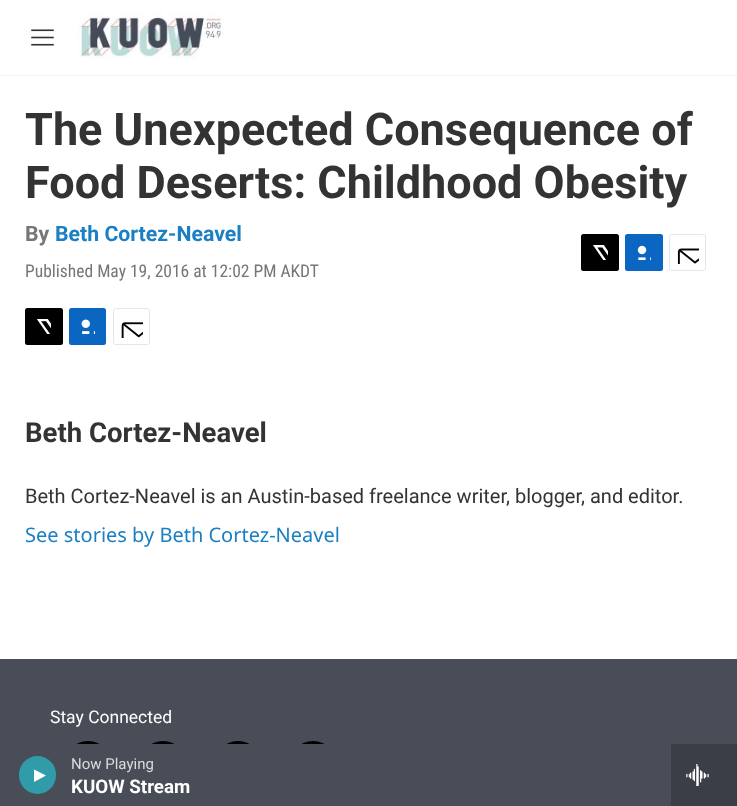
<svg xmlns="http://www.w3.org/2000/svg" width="737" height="806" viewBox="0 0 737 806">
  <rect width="100%" height="100%" fill="#ffffff"/>
  <text x="25" y="145" font-family="Roboto" font-size="45" font-weight="bold" fill="#333333">The Unexpected Consequence of</text>
  <text x="25" y="198" font-family="Roboto" font-size="45" font-weight="bold" fill="#333333">Food Deserts: Childhood Obesity</text>
  <text x="25" y="241" font-family="Roboto" font-size="21.25" font-weight="bold" fill="#767676">By</text>
  <text x="55" y="241" font-family="Roboto" font-size="21.25" font-weight="bold" fill="#1a7fc3">Beth Cortez-Neavel</text>
  <text x="25" y="277" font-family="Roboto Condensed" font-size="17.5" fill="#767676">Published May 19, 2016 at 12:02 PM AKDT</text>
  <rect x="581" y="234" width="38" height="37" rx="2.5" fill="#000000"/>
  <image x="593" y="245" width="15" height="15" href="img1.png"/>
  <rect x="625" y="234" width="38" height="37" rx="2.5" fill="#0a66c1"/>
  <image x="637" y="245" width="14" height="15" href="img2.png"/>
  <rect x="669.5" y="234.5" width="36" height="36" rx="2" fill="none" stroke="#e6e6e6"/>
  <image x="677" y="248" width="22" height="16" href="img3.png"/>
  <rect x="25" y="308" width="38" height="37" rx="2.5" fill="#000000"/>
  <image x="37" y="319" width="14" height="15" href="img4.png"/>
  <rect x="69" y="308" width="37" height="37" rx="2.5" fill="#0a66c1"/>
  <image x="81" y="319" width="14" height="15" href="img5.png"/>
  <rect x="113.5" y="308.5" width="36" height="36" rx="2" fill="none" stroke="#e6e6e6"/>
  <image x="121" y="322" width="22" height="16" href="img6.png"/>
  <text x="25" y="442" font-family="Roboto" font-size="27.5" font-weight="bold" fill="#333333">Beth Cortez-Neavel</text>
  <text x="25" y="503" font-family="Roboto" font-size="20" fill="#333333">Beth Cortez-Neavel is an Austin-based freelance writer, blogger, and editor.</text>
  <text x="25" y="542" font-family="Noto Sans" font-size="20" fill="#1a7fc3">See stories by Beth Cortez-Neavel</text>
  <rect x="0" y="659" width="737" height="85" fill="#494d58"/>
  <text x="50" y="723" font-family="Roboto" font-size="17.5" fill="#ffffff">Stay Connected</text>
  <circle cx="88" cy="766" r="25" fill="#000000"/>
  <circle cx="163" cy="766" r="25" fill="#000000"/>
  <circle cx="238" cy="766" r="25" fill="#000000"/>
  <circle cx="313" cy="766" r="25" fill="#000000"/>
  <rect x="0" y="75" width="737" height="1" fill="#f5f5f5"/>
  <image x="31" y="29" width="23" height="17" href="img7.png"/>
  <image x="77" y="12" width="147" height="48" href="img8.png"/>
  <rect x="0" y="744" width="671" height="62" fill="#494d58"/>
  <rect x="19" y="756" width="37" height="38" rx="18.5" fill="#309ca9"/>
  <path d="M34 769.5L46 775.5L34 782Z" fill="#ffffff"/>
  <text x="71" y="769" font-family="Roboto" font-size="15" fill="#dbdbde">Now Playing</text>
  <text x="71" y="793" font-family="'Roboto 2'" font-size="18.75" font-weight="bold" fill="#ffffff">KUOW Stream</text>
  <rect x="671" y="744" width="66" height="62" fill="#3a3e46"/>
  <image x="686" y="764" width="23" height="22" href="img9.png"/>
</svg>
